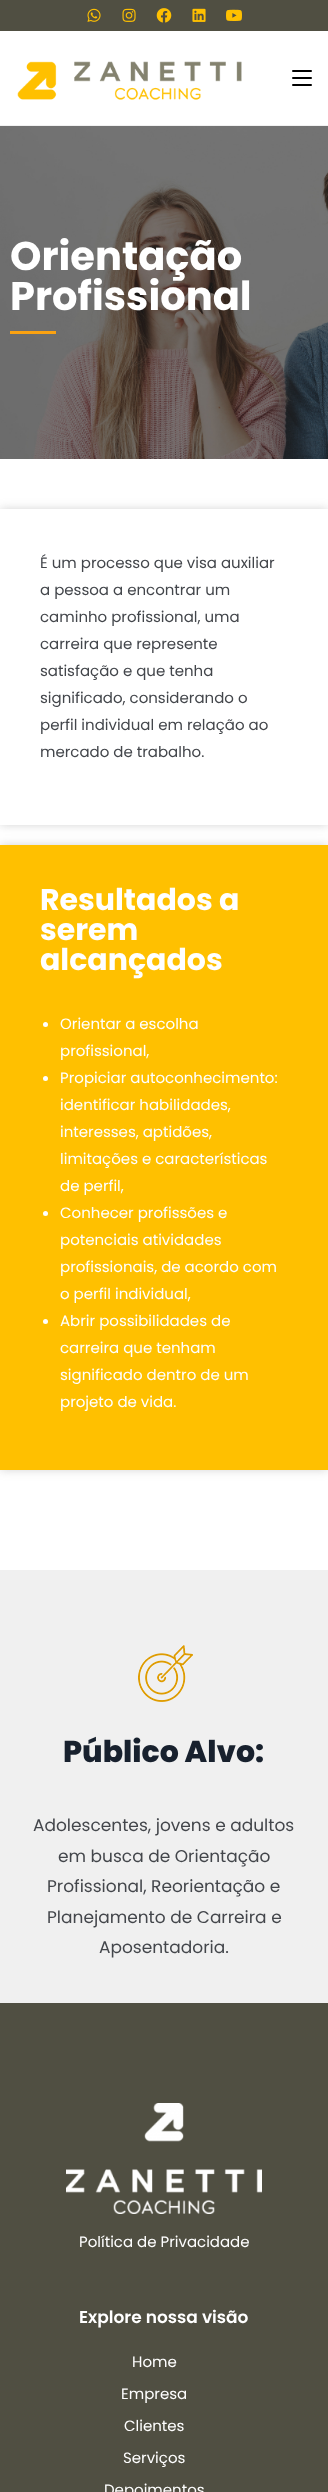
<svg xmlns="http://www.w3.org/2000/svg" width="328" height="2492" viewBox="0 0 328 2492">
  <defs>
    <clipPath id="clip1"><path d="M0 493H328V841H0ZM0 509H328V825H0Z" clip-rule="evenodd"/></clipPath>
    <filter id="blur1" x="-50%" y="-200%" width="200%" height="500%"><feGaussianBlur stdDeviation="5"/></filter>
  </defs>
  <rect width="100%" height="100%" fill="#ffffff"/>
  <rect x="0" y="0" width="328" height="31" fill="#504f42"/>
  <image x="87" y="8" width="14" height="14" href="img1.png"/>
  <image x="122" y="8" width="14" height="14" href="img2.png"/>
  <image x="156" y="8" width="16" height="15" href="img3.png"/>
  <image x="192" y="8" width="14" height="14" href="img4.png"/>
  <image x="226" y="9" width="16" height="12" href="img5.png"/>
  <rect x="0" y="125" width="328" height="1" fill="#f1f1f1"/>
  <image x="17" y="61" width="225" height="39" href="img6.png"/>
  <rect x="292" y="77" width="20" height="2" rx="1" fill="#000000"/>
  <rect x="292" y="70" width="20" height="2" rx="1" fill="#000000"/>
  <rect x="292" y="84" width="20" height="2" rx="1" fill="#000000"/>
  <image x="0" y="126" width="328" height="333" href="img7.png"/>
  <text x="10" y="270" font-family="Poppins" font-size="40" font-weight="bold" fill="#ffffff">Orientação</text>
  <text x="10" y="310" font-family="Poppins" font-size="40" font-weight="bold" fill="#ffffff">Profissional</text>
  <rect x="10" y="331" width="46" height="3" fill="#fba211"/>
  <g clip-path="url(#clip1)">
    <rect x="0" y="509" width="328" height="316" fill="#aaaaaa" fill-opacity="0.5" filter="url(#blur1)"/>
  </g>
  <text x="40" y="568" font-family="Poppins" font-size="15" fill="#43464b">É um processo que visa auxiliar</text>
  <text x="40" y="595" font-family="Poppins" font-size="15" fill="#43464b">a pessoa a encontrar um</text>
  <text x="40" y="622" font-family="Poppins" font-size="15" fill="#43464b">caminho profissional, uma</text>
  <text x="40" y="649" font-family="Poppins" font-size="15" fill="#43464b">carreira que represente</text>
  <text x="40" y="676" font-family="Poppins" font-size="15" fill="#43464b">satisfação e que tenha</text>
  <text x="40" y="703" font-family="Poppins" font-size="15" fill="#43464b">significado, considerando o</text>
  <text x="40" y="730" font-family="Poppins" font-size="15" fill="#43464b">perfil individual em relação ao</text>
  <text x="40" y="757" font-family="Poppins" font-size="15" fill="#43464b">mercado de trabalho.</text>
  <rect x="0" y="845" width="328" height="625" fill="#aaaaaa" fill-opacity="0.5" filter="url(#blur1)"/>
  <rect x="0" y="845" width="328" height="625" fill="#ffc000"/>
  <text x="40" y="910" font-family="Poppins" font-size="30" font-weight="bold" fill="#ffffff">Resultados a</text>
  <text x="40" y="940" font-family="Poppins" font-size="30" font-weight="bold" fill="#ffffff">serem</text>
  <text x="40" y="970" font-family="Poppins" font-size="30" font-weight="bold" fill="#ffffff">alcançados</text>
  <circle cx="45.5" cy="1024.5" r="2.5" fill="#ffffff"/>
  <text x="60" y="1029" font-family="Poppins" font-size="15" fill="#ffffff">Orientar a escolha</text>
  <text x="60" y="1056" font-family="Poppins" font-size="15" fill="#ffffff">profissional,</text>
  <circle cx="45.5" cy="1078.5" r="2.5" fill="#ffffff"/>
  <text x="60" y="1083" font-family="Poppins" font-size="15" fill="#ffffff">Propiciar autoconhecimento:</text>
  <text x="60" y="1110" font-family="Poppins" font-size="15" fill="#ffffff">identificar habilidades,</text>
  <text x="60" y="1137" font-family="Poppins" font-size="15" fill="#ffffff">interesses, aptidões,</text>
  <text x="60" y="1164" font-family="Poppins" font-size="15" fill="#ffffff">limitações e características</text>
  <text x="60" y="1191" font-family="Poppins" font-size="15" fill="#ffffff">de perfil,</text>
  <circle cx="45.5" cy="1213.5" r="2.5" fill="#ffffff"/>
  <text x="60" y="1218" font-family="Poppins" font-size="15" fill="#ffffff">Conhecer profissões e</text>
  <text x="60" y="1245" font-family="Poppins" font-size="15" fill="#ffffff">potenciais atividades</text>
  <text x="60" y="1272" font-family="Poppins" font-size="15" fill="#ffffff">profissionais, de acordo com</text>
  <text x="60" y="1299" font-family="Poppins" font-size="15" fill="#ffffff">o perfil individual,</text>
  <circle cx="45.5" cy="1321.5" r="2.5" fill="#ffffff"/>
  <text x="60" y="1326" font-family="Poppins" font-size="15" fill="#ffffff">Abrir possibilidades de</text>
  <text x="60" y="1353" font-family="Poppins" font-size="15" fill="#ffffff">carreira que tenham</text>
  <text x="60" y="1380" font-family="Poppins" font-size="15" fill="#ffffff">significado dentro de um</text>
  <text x="60" y="1407" font-family="Poppins" font-size="15" fill="#ffffff">projeto de vida.</text>
  <rect x="0" y="1570" width="328" height="433" fill="#f0f0f0"/>
  <image x="138" y="1645" width="55" height="57" href="img8.png"/>
  <text x="63" y="1762" font-family="Poppins" font-size="30" font-weight="800" fill="#18212e">Público Alvo:</text>
  <text x="33" y="1831" font-family="Poppins" font-size="17" fill="#43464b">Adolescentes, jovens e adultos</text>
  <text x="58" y="1862" font-family="Poppins" font-size="17" fill="#43464b">em busca de Orientação</text>
  <text x="47" y="1892" font-family="Poppins" font-size="17" fill="#43464b">Profissional, Reorientação e</text>
  <text x="47" y="1923" font-family="Poppins" font-size="17" fill="#43464b">Planejamento de Carreira e</text>
  <text x="99" y="1953" font-family="Poppins" font-size="17" fill="#43464b">Aposentadoria.</text>
  <rect x="0" y="2003" width="328" height="489" fill="#504f42"/>
  <image x="66" y="2103" width="196" height="111" href="img9.png"/>
  <text x="79" y="2247" font-family="Poppins" font-size="15" fill="#ffffff">Política de Privacidade</text>
  <text x="79" y="2323" font-family="Poppins" font-size="17" font-weight="600" fill="#ffffff">Explore nossa visão</text>
  <text x="132" y="2367" font-family="Poppins" font-size="15" fill="#ffffff">Home</text>
  <text x="121" y="2399" font-family="Poppins" font-size="15" fill="#ffffff">Empresa</text>
  <text x="124" y="2431" font-family="Poppins" font-size="15" fill="#ffffff">Clientes</text>
  <text x="123" y="2463" font-family="Poppins" font-size="15" fill="#ffffff">Serviços</text>
  <text x="104" y="2495" font-family="Poppins" font-size="15" fill="#ffffff">Depoimentos</text>
</svg>
